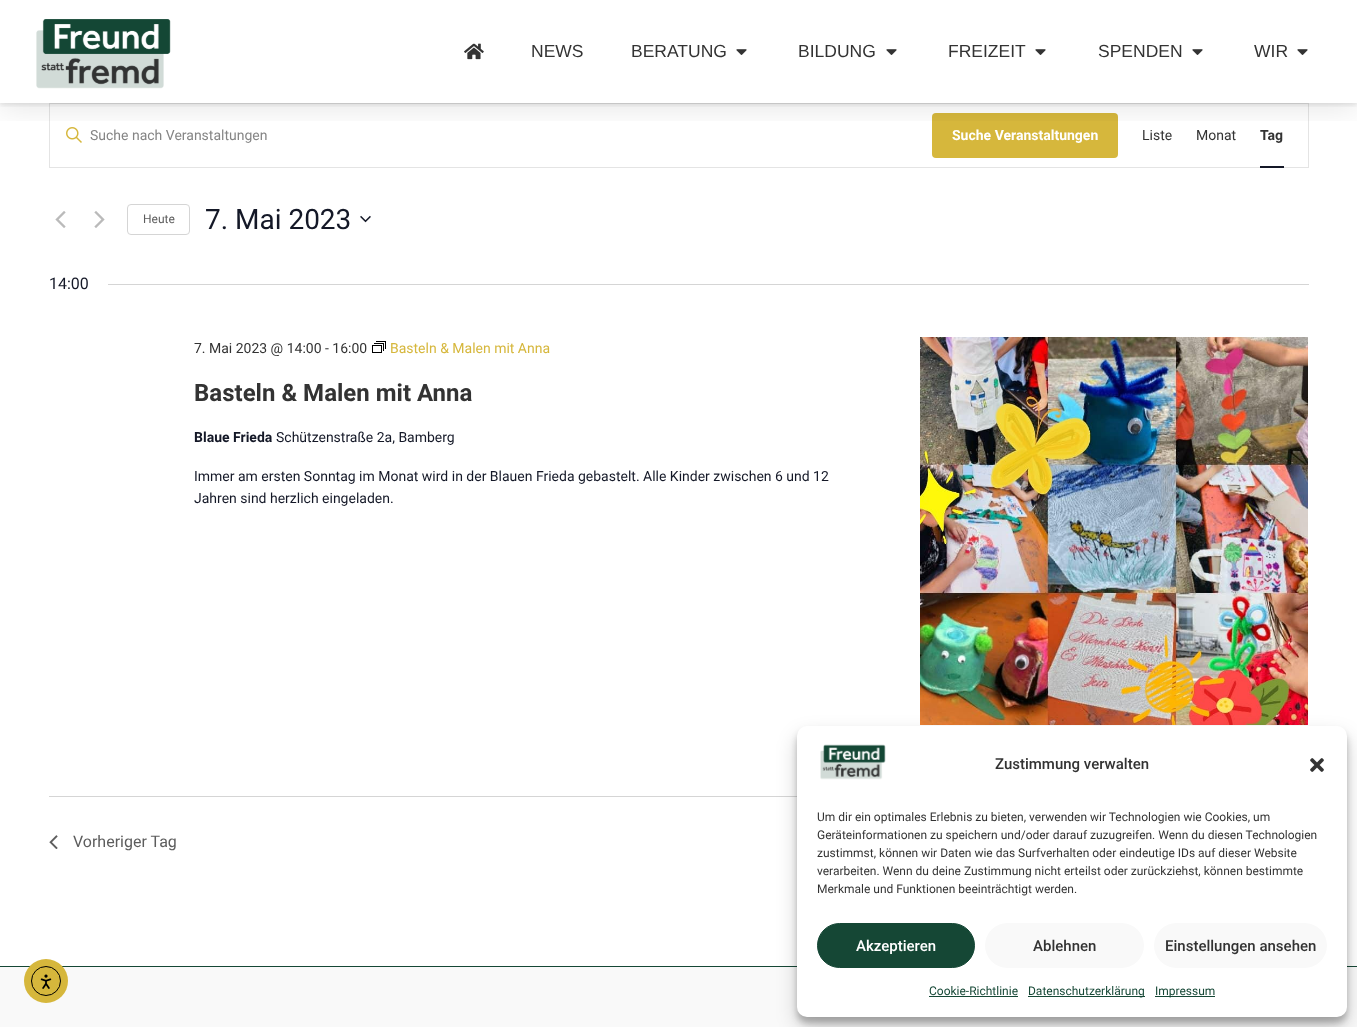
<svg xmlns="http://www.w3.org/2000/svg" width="1357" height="1027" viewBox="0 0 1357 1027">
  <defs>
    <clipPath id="clip1"><rect x="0" y="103" width="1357" height="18"/></clipPath>
    <filter id="blur1" x="-50%" y="-200%" width="200%" height="500%"><feGaussianBlur stdDeviation="15"/></filter>
    <clipPath id="clip2"><rect x="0" y="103" width="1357" height="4"/></clipPath>
    <filter id="blur2" x="-50%" y="-200%" width="200%" height="500%"><feGaussianBlur stdDeviation="2.5"/></filter>
    <filter id="blur3" x="-50%" y="-200%" width="200%" height="500%"><feGaussianBlur stdDeviation="3"/></filter>
    <filter id="blur4" x="-50%" y="-200%" width="200%" height="500%"><feGaussianBlur stdDeviation="10"/></filter>
  </defs>
  <rect width="100%" height="100%" fill="#ffffff"/>
  <rect x="49.5" y="103.5" width="1259" height="64" fill="none" stroke="#e4e4e4"/>
  <image x="66" y="127" width="16" height="16" href="img4.png"/>
  <rect x="932" y="113" width="186" height="45" rx="4" fill="#d6b73c"/>
  <g clip-path="url(#clip1)">
    <rect x="0" y="5" width="1357" height="103" fill="#000000" fill-opacity="0.1" filter="url(#blur1)"/>
  </g>
  <g clip-path="url(#clip2)">
    <rect x="0" y="2" width="1357" height="103" fill="#000000" fill-opacity="0.1" filter="url(#blur2)"/>
  </g>
  <image x="36" y="19" width="135" height="70" href="img1.png"/>
  <image x="464" y="43" width="20" height="17" href="img2.png"/>
  <text x="531" y="57" font-family="Liberation Sans" font-size="17.5" fill="#333333">NEWS</text>
  <text x="631" y="57" font-family="Liberation Sans" font-size="17.5" fill="#333333">BERATUNG</text>
  <image x="736" y="49" width="11" height="6" href="img3.png"/>
  <text x="798" y="57" font-family="Liberation Sans" font-size="17.5" fill="#333333">BILDUNG</text>
  <image x="886" y="49" width="11" height="6" href="img3.png"/>
  <text x="948" y="57" font-family="Liberation Sans" font-size="17.5" fill="#333333">FREIZEIT</text>
  <image x="1035" y="49" width="11" height="6" href="img3.png"/>
  <text x="1098" y="57" font-family="Liberation Sans" font-size="17.5" fill="#333333">SPENDEN</text>
  <image x="1192" y="49" width="11" height="6" href="img3.png"/>
  <text x="1254" y="57" font-family="Liberation Sans" font-size="17.5" fill="#333333">WIR</text>
  <image x="1297" y="49" width="11" height="6" href="img3.png"/>
  <text x="90" y="140" font-family="Roboto" font-size="14" fill="#858585">Suche nach Veranstaltungen</text>
  <text x="952" y="140" font-family="Roboto" font-size="14" font-weight="bold" fill="#ffffff">Suche Veranstaltungen</text>
  <text x="1142" y="140" font-family="Roboto" font-size="14" fill="#333333">Liste</text>
  <text x="1196" y="140" font-family="Roboto" font-size="14" fill="#333333">Monat</text>
  <text x="1260" y="140" font-family="Roboto" font-size="14" font-weight="bold" fill="#333333">Tag</text>
  <rect x="1260" y="166" width="24" height="2" fill="#141827"/>
  <image x="55" y="211" width="11" height="17" href="img5.png"/>
  <image x="94" y="211" width="11" height="17" href="img6.png"/>
  <rect x="127.5" y="204.5" width="62" height="30" rx="3.5" fill="none" stroke="#d5d5d5"/>
  <text x="143" y="223" font-family="Roboto" font-size="12" fill="#5d5d5d">Heute</text>
  <text x="205" y="229" font-family="Roboto" font-size="28" fill="#141827">7. Mai 2023</text>
  <image x="360" y="215" width="11" height="8" href="img7.png"/>
  <text x="49" y="289" font-family="Roboto" font-size="16" fill="#141827">14:00</text>
  <rect x="108" y="284" width="1201" height="1" fill="#d5d5d5"/>
  <text x="194" y="353" font-family="Roboto" font-size="14" fill="#333333">7. Mai 2023 @ 14:00 - 16:00</text>
  <image x="372" y="341" width="14" height="12" href="img8.png"/>
  <text x="390" y="353" font-family="Roboto" font-size="14" fill="#d6b73c">Basteln &amp; Malen mit Anna</text>
  <text x="194" y="401" font-family="Roboto" font-size="24" font-weight="bold" fill="#333333">Basteln &amp; Malen mit Anna</text>
  <text x="194" y="442" font-family="Roboto" font-size="14" font-weight="bold" fill="#141827">Blaue Frieda</text>
  <text x="276" y="442" font-family="Roboto" font-size="14" fill="#141827">Schützenstraße 2a, Bamberg</text>
  <text x="194" y="481" font-family="Roboto" font-size="14" fill="#141827">Immer am ersten Sonntag im Monat wird in der Blauen Frieda gebastelt. Alle Kinder zwischen 6 und 12</text>
  <text x="194" y="503" font-family="Roboto" font-size="14" fill="#141827">Jahren sind herzlich eingeladen.</text>
  <image x="920" y="337" width="388" height="388" href="img9.png"/>
  <rect x="49" y="796" width="748" height="1" fill="#d5d5d5"/>
  <image x="49" y="835" width="9" height="14" href="img10.png"/>
  <text x="73" y="847" font-family="Roboto" font-size="16" fill="#5d5d5d">Vorheriger Tag</text>
  <rect x="0" y="967" width="1357" height="60" fill="#f9f9f9"/>
  <rect x="0" y="966" width="1357" height="1" fill="#154735"/>
  <circle cx="46" cy="981" r="22" fill="#d6b73c"/>
  <circle cx="46" cy="981" r="14.5" fill="none" stroke="#000000"/>
  <image x="40" y="974" width="12" height="15" href="img11.png"/>
  <rect x="797" y="732" width="550" height="291" rx="10" fill="#000000" fill-opacity="0.23" filter="url(#blur3)"/>
  <rect x="797" y="736" width="550" height="291" rx="10" fill="#000000" fill-opacity="0.19" filter="url(#blur4)"/>
  <rect x="797" y="726" width="550" height="291" rx="10" fill="#ffffff"/>
  <image x="820" y="744" width="66" height="36" href="img12.png"/>
  <text x="995" y="769" font-family="Roboto" font-size="15" font-weight="500" fill="#333333">Zustimmung verwalten</text>
  <image x="1310" y="758" width="14" height="14" href="img13.png"/>
  <text x="817" y="821" font-family="Roboto" font-size="12" fill="#333333">Um dir ein optimales Erlebnis zu bieten, verwenden wir Technologien wie Cookies, um</text>
  <text x="817" y="839" font-family="Roboto" font-size="12" fill="#333333">Geräteinformationen zu speichern und/oder darauf zuzugreifen. Wenn du diesen Technologien</text>
  <text x="817" y="857" font-family="Roboto" font-size="12" fill="#333333">zustimmst, können wir Daten wie das Surfverhalten oder eindeutige IDs auf dieser Website</text>
  <text x="817" y="875" font-family="Roboto" font-size="12" fill="#333333">verarbeiten. Wenn du deine Zustimmung nicht erteilst oder zurückziehst, können bestimmte</text>
  <text x="817" y="893" font-family="Roboto" font-size="12" fill="#333333">Merkmale und Funktionen beeinträchtigt werden.</text>
  <rect x="817.5" y="923.5" width="157" height="44" rx="22" fill="#154735" stroke="#154735"/>
  <text x="856" y="951" font-family="Roboto" font-size="15" font-weight="500" fill="#ffffff">Akzeptieren</text>
  <rect x="985" y="923" width="159" height="45" rx="22.5" fill="#f9f9f9"/>
  <text x="1033" y="951" font-family="Roboto" font-size="15" font-weight="500" fill="#333333">Ablehnen</text>
  <rect x="1154" y="923" width="173" height="45" rx="22.5" fill="#f9f9f9"/>
  <text x="1165" y="951" font-family="Roboto" font-size="15" font-weight="500" fill="#333333">Einstellungen ansehen</text>
  <text x="929" y="995" font-family="Roboto" font-size="12" fill="#154735">Cookie-Richtlinie</text>
  <rect x="929" y="996" width="89" height="1" fill="#154735"/>
  <rect x="1028" y="996" width="117" height="1" fill="#154735"/>
  <text x="1028" y="995" font-family="Roboto" font-size="12" fill="#154735">Datenschutzerklärung</text>
  <rect x="1155" y="996" width="60" height="1" fill="#154735"/>
  <text x="1155" y="995" font-family="Roboto" font-size="12" fill="#154735">Impressum</text>
</svg>
